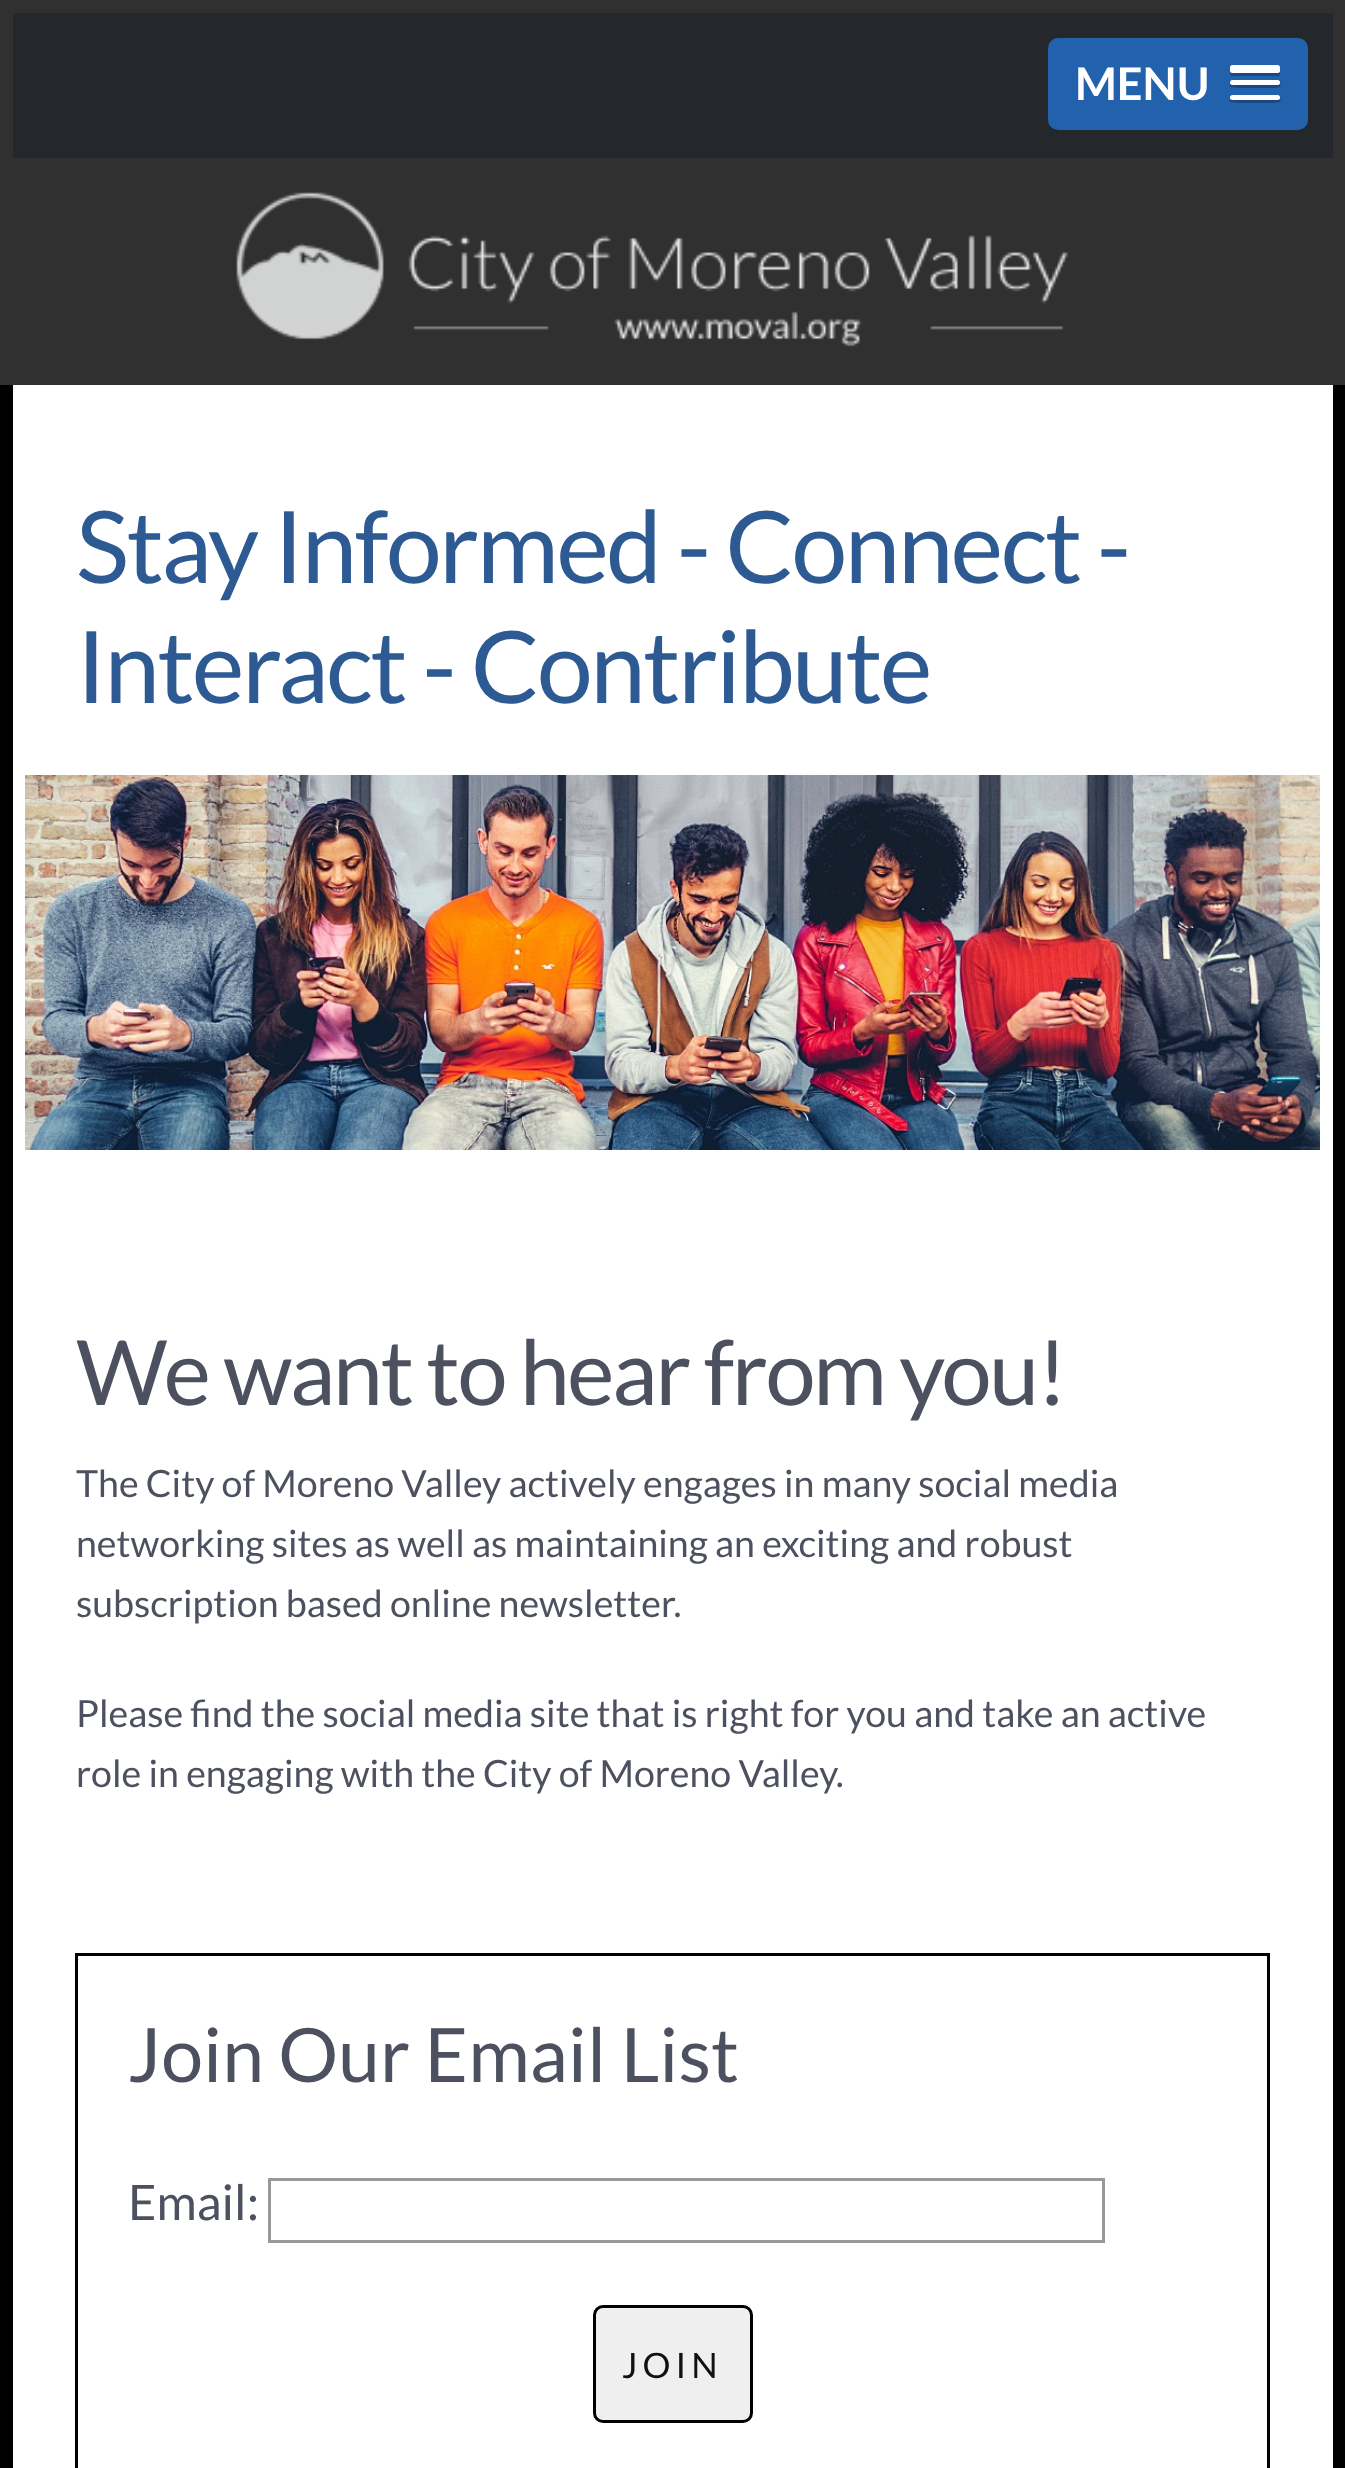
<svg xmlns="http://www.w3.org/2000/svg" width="1345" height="2468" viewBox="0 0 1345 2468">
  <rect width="100%" height="100%" fill="#000000"/>
  <rect x="0" y="0" width="1345" height="385" fill="#303030"/>
  <rect x="13" y="13" width="1320" height="145" fill="#24282d"/>
  <rect x="1048" y="38" width="260" height="92" rx="10" fill="#2261ac"/>
  <text x="1075" y="100" font-family="Lato" font-size="45" font-weight="bold" fill="#ffffff">MENU</text>
  <path d="M1230 70C1229 78 1233 76 1240 76H1270C1277 76 1281 78 1280 70C1280 72 1279 72 1278 72H1232C1231 72 1230 72 1230 70Z" fill="#1a4981"/>
  <rect x="1230" y="65" width="50" height="8" rx="2.5" fill="#ffffff"/>
  <path d="M1230 84C1227 88 1235 88 1240 88H1270C1275 88 1283 88 1280 84L1278 85H1232Z" fill="#1a4981"/>
  <rect x="1230" y="80" width="50" height="5" rx="2.5" fill="#ffffff"/>
  <path d="M1230 99C1227 103 1235 103 1240 103H1270C1275 103 1283 103 1280 99L1278 100H1232Z" fill="#1a4981"/>
  <rect x="1230" y="95" width="50" height="5" rx="2.5" fill="#ffffff"/>
  <image x="236" y="192" width="832" height="155" href="img1.png"/>
  <rect x="13" y="385" width="1320" height="2083" fill="#ffffff"/>
  <text x="76" y="583" font-family="Lato" font-size="100" letter-spacing="-2.5" fill="#2e5a93">Stay Informed - Connect -</text>
  <text x="76" y="703" font-family="Lato" font-size="100" letter-spacing="-2.5" fill="#2e5a93">Interact - Contribute</text>
  <image x="25" y="775" width="1295" height="375" href="img2.png"/>
  <text x="76" y="1405" font-family="Lato" font-size="90" letter-spacing="-2.5" fill="#4d515f">We want to hear from you!</text>
  <text x="76" y="1497" font-family="Lato" font-size="37.5" fill="#4d515f">The City of Moreno Valley actively engages in many social media</text>
  <text x="76" y="1557" font-family="Lato" font-size="37.5" fill="#4d515f">networking sites as well as maintaining an exciting and robust</text>
  <text x="76" y="1617" font-family="Lato" font-size="37.5" fill="#4d515f">subscription based online newsletter.</text>
  <text x="76" y="1727" font-family="Lato" font-size="37.5" fill="#4d515f">Please find the social media site that is right for you and take an active</text>
  <text x="76" y="1787" font-family="Lato" font-size="37.5" fill="#4d515f">role in engaging with the City of Moreno Valley.</text>
  <rect x="76.5" y="1954.5" width="1192" height="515" fill="none" stroke="#000000" stroke-width="3"/>
  <text x="128" y="2082" font-family="Lato" font-size="75" fill="#4d515f">Join Our Email List</text>
  <text x="128" y="2220" font-family="Lato" font-size="49" fill="#4d515f">Email:</text>
  <rect x="269.5" y="2179.5" width="834" height="62" fill="none" stroke="#999999" stroke-width="3"/>
  <rect x="594.5" y="2306.5" width="157" height="115" rx="8.5" fill="#efefef" stroke="#000000" stroke-width="3"/>
  <text x="622" y="2378" font-family="Lato" font-size="35" letter-spacing="5" fill="#111111">JOIN</text>
</svg>
